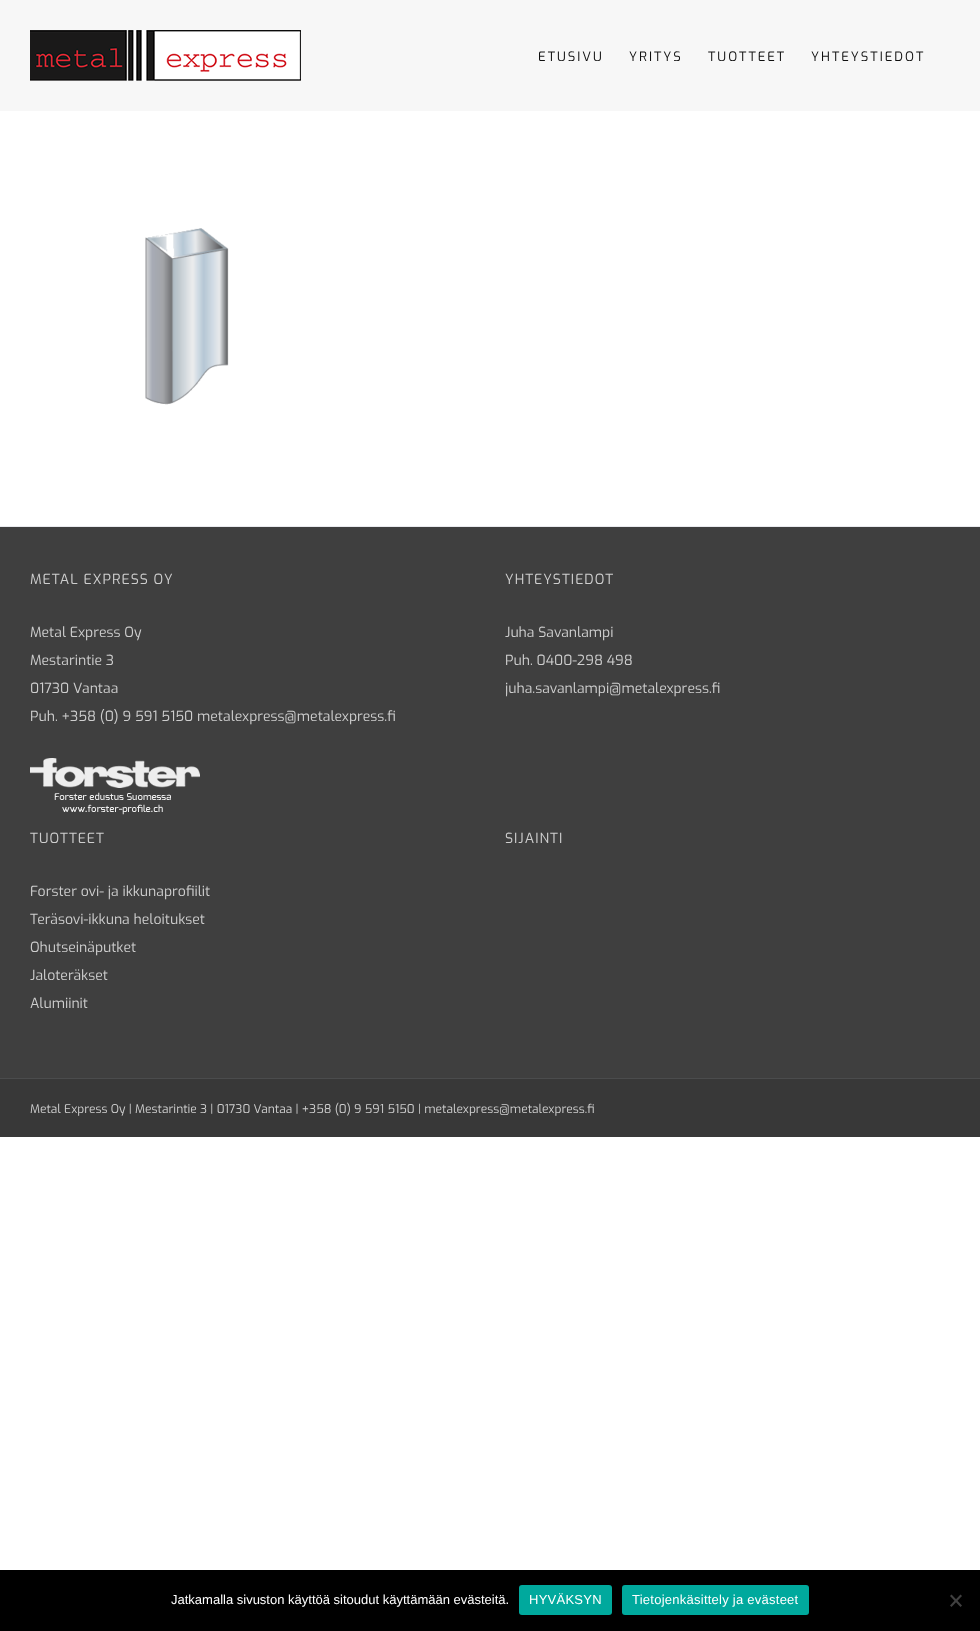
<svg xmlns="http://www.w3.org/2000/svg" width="980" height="1631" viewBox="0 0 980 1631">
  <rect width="100%" height="100%" fill="#ffffff"/>
  <rect x="0" y="0" width="980" height="111" fill="#f7f7f7"/>
  <image x="30" y="30" width="271" height="51" href="img1.png"/>
  <text x="538" y="61" font-family="Exo" font-size="13" letter-spacing="2" fill="#0f0f0f">ETUSIVU</text>
  <text x="629" y="61" font-family="Exo" font-size="13" letter-spacing="2" fill="#0f0f0f">YRITYS</text>
  <text x="708" y="61" font-family="Exo" font-size="13" letter-spacing="2" fill="#0f0f0f">TUOTTEET</text>
  <text x="811" y="61" font-family="Exo" font-size="13" letter-spacing="2" fill="#0f0f0f">YHTEYSTIEDOT</text>
  <image x="145" y="228" width="84" height="177" href="img2.png"/>
  <rect x="0" y="527" width="980" height="551" fill="#3f3f3f"/>
  <rect x="0" y="526" width="980" height="1" fill="#e9eaee"/>
  <text x="30" y="584" font-family="Exo" font-size="14" letter-spacing="1" fill="#cecece">METAL EXPRESS OY</text>
  <text x="30" y="637" font-family="Exo" font-size="14" fill="#cecece">Metal Express Oy</text>
  <text x="30" y="665" font-family="Exo" font-size="14" fill="#cecece">Mestarintie 3</text>
  <text x="30" y="693" font-family="Exo" font-size="14" fill="#cecece">01730 Vantaa</text>
  <text x="30" y="721" font-family="Exo" font-size="14" fill="#cecece">Puh. +358 (0) 9 591 5150 metalexpress@metalexpress.fi</text>
  <image x="30" y="758" width="170" height="57" href="img3.png"/>
  <text x="505" y="584" font-family="Exo" font-size="14" letter-spacing="1" fill="#cecece">YHTEYSTIEDOT</text>
  <text x="505" y="637" font-family="Exo" font-size="14" fill="#cecece">Juha Savanlampi</text>
  <text x="505" y="665" font-family="Exo" font-size="14" fill="#cecece">Puh. 0400-298 498</text>
  <text x="505" y="693" font-family="Exo" font-size="14" fill="#cecece">juha.savanlampi@metalexpress.fi</text>
  <text x="30" y="843" font-family="Exo" font-size="14" letter-spacing="1" fill="#cecece">TUOTTEET</text>
  <text x="30" y="896" font-family="Exo" font-size="14" fill="#cecece">Forster ovi- ja ikkunaprofiilit</text>
  <text x="30" y="924" font-family="Exo" font-size="14" fill="#cecece">Teräsovi-ikkuna heloitukset</text>
  <text x="30" y="952" font-family="Exo" font-size="14" fill="#cecece">Ohutseinäputket</text>
  <text x="30" y="980" font-family="Exo" font-size="14" fill="#cecece">Jaloteräkset</text>
  <text x="30" y="1008" font-family="Exo" font-size="14" fill="#cecece">Alumiinit</text>
  <text x="505" y="843" font-family="Exo" font-size="14" letter-spacing="1" fill="#cecece">SIJAINTI</text>
  <rect x="0" y="1079" width="980" height="58" fill="#383838"/>
  <rect x="0" y="1078" width="980" height="1" fill="#4b4c4d"/>
  <text x="30" y="1113" font-family="Exo" font-size="12" fill="#cecece">Metal Express Oy | Mestarintie 3 | 01730 Vantaa | +358 (0) 9 591 5150 | metalexpress@metalexpress.fi</text>
  <rect x="0" y="1570" width="980" height="61" fill="#000000"/>
  <text x="171" y="1604" font-family="Liberation Sans" font-size="13" fill="#ffffff">Jatkamalla sivuston käyttöä sitoudut käyttämään evästeitä.</text>
  <rect x="519" y="1585" width="93" height="30" rx="3" fill="#00a99d"/>
  <text x="529" y="1604" font-family="Liberation Sans" font-size="13" letter-spacing="0.25" fill="#ffffff">HYVÄKSYN</text>
  <rect x="622" y="1585" width="187" height="30" rx="3" fill="#00a99d"/>
  <text x="632" y="1604" font-family="Liberation Sans" font-size="13" letter-spacing="0.25" fill="#ffffff">Tietojenkäsittely ja evästeet</text>
  <path d="M960.5 1594.5L962 1596L951.5 1607L950 1605.5Z" fill="#404040"/>
  <path d="M950 1596L951.5 1594.5L962 1605.5L960.5 1607Z" fill="#404040"/>
</svg>
